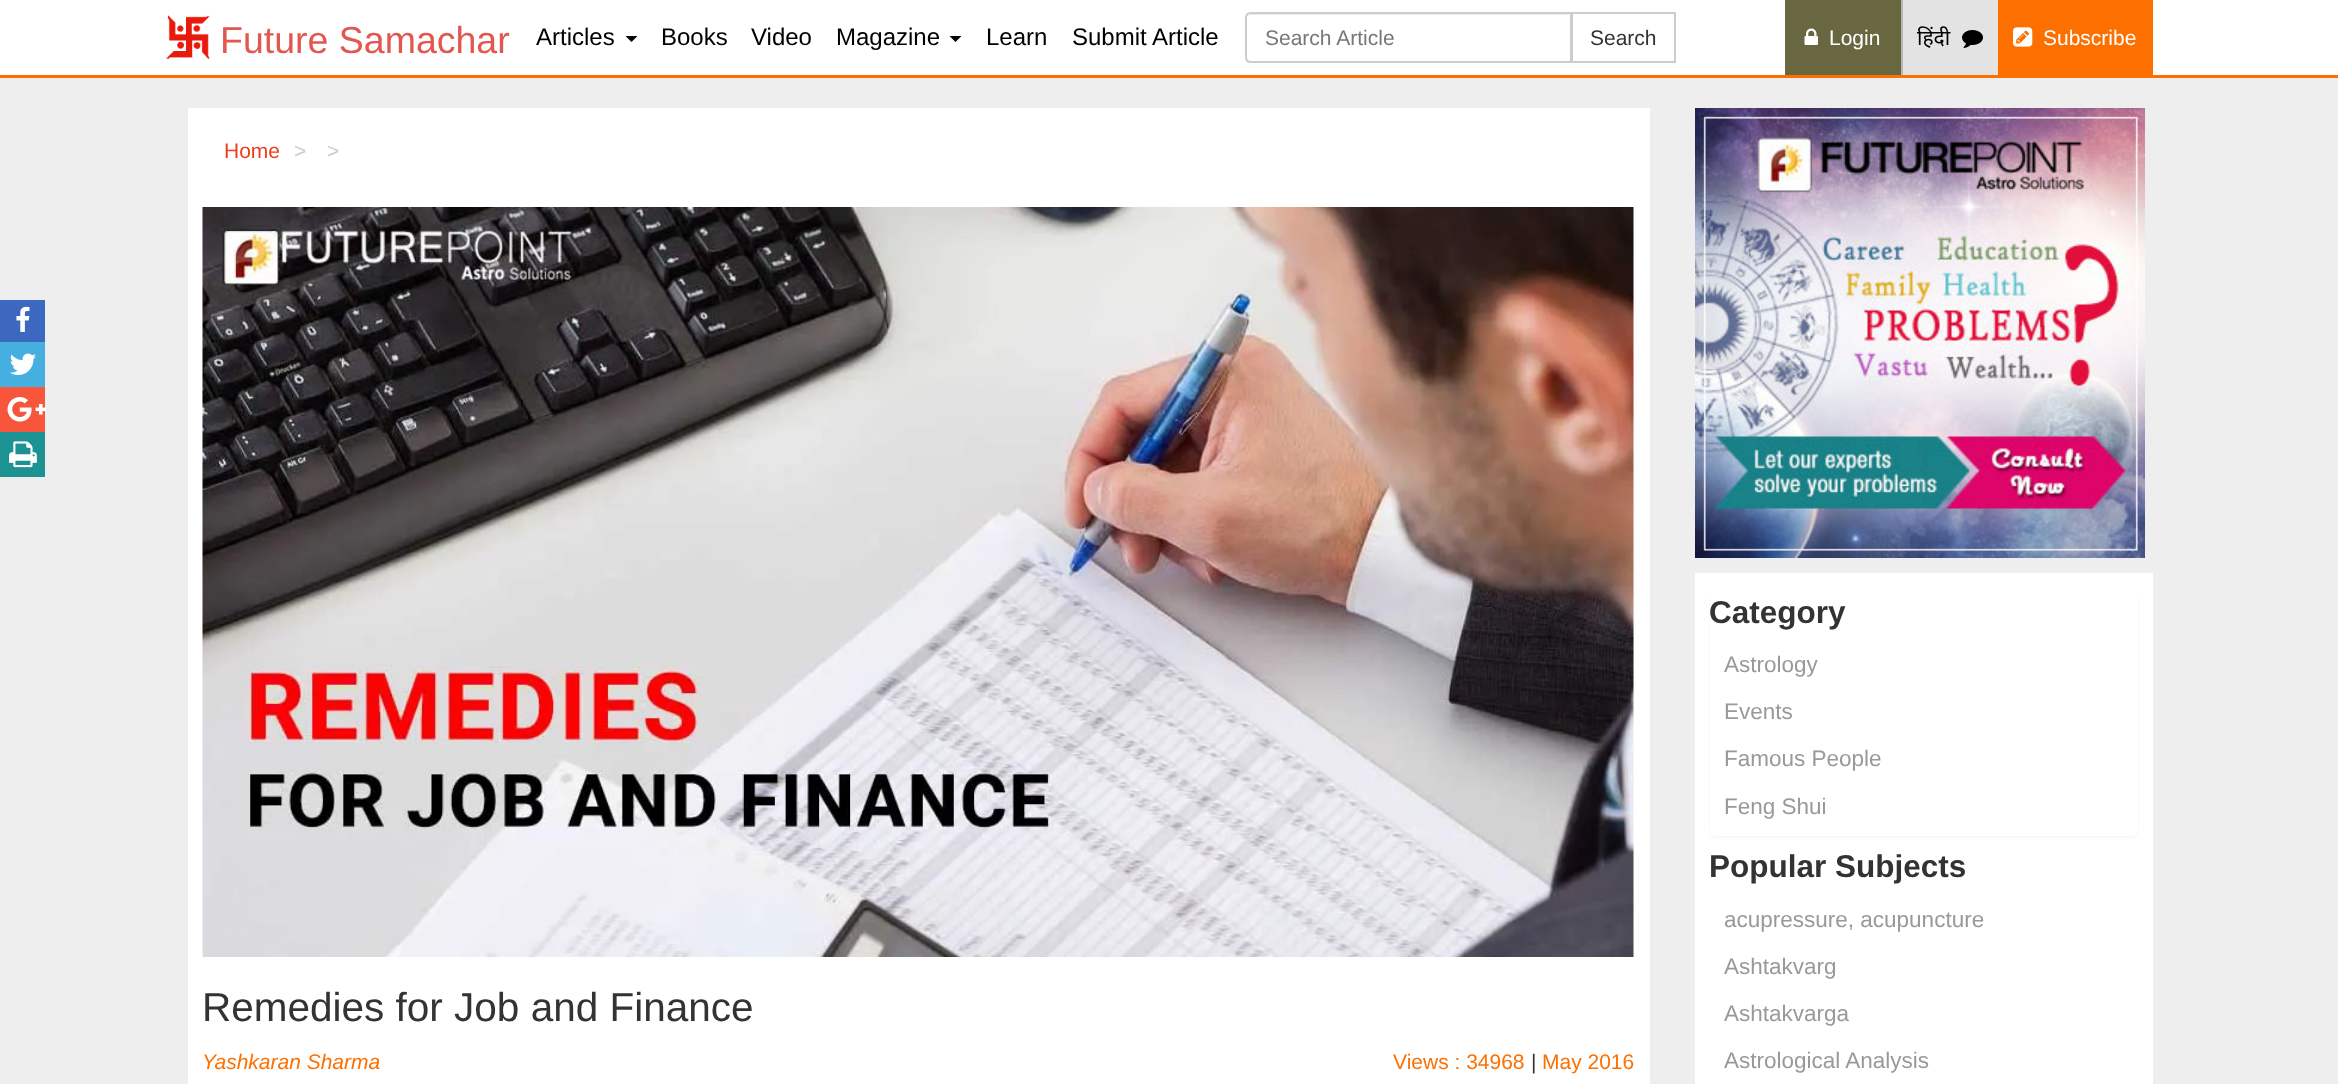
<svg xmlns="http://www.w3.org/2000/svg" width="2338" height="1084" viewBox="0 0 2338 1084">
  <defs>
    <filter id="blur1" x="-50%" y="-200%" width="200%" height="500%"><feGaussianBlur stdDeviation="1"/></filter>
  </defs>
  <rect width="100%" height="100%" fill="#ffffff"/>
  <rect x="0" y="75" width="2338" height="3" fill="#fd7000"/>
  <image x="166" y="15" width="44" height="45" href="img1.png"/>
  <text x="220" y="53" font-family="Liberation Sans" font-size="37.5" fill="#e15850">Future Samachar</text>
  <text x="536" y="45" font-family="Liberation Sans" font-size="24" fill="#000000">Articles</text>
  <path d="M625.5 36H637.5L631.5 42Z" fill="#000000"/>
  <text x="661" y="45" font-family="Liberation Sans" font-size="24" fill="#000000">Books</text>
  <text x="751" y="45" font-family="Liberation Sans" font-size="24" fill="#000000">Video</text>
  <text x="836" y="45" font-family="Liberation Sans" font-size="24" fill="#000000">Magazine</text>
  <path d="M949.5 36H961.5L955.5 42Z" fill="#000000"/>
  <text x="986" y="45" font-family="Liberation Sans" font-size="24" fill="#000000">Learn</text>
  <text x="1072" y="45" font-family="Liberation Sans" font-size="24" fill="#000000">Submit Article</text>
  <rect x="1572" y="13" width="103" height="49" fill="none" stroke="#cccccc" stroke-width="2"/>
  <path d="M1251 12H1572V63H1251C1247.5 63 1245 60.5 1245 57V18C1245 14.5 1247.5 12 1251 12Z" fill="#ffffff"/>
  <path d="M1251 15H1570V62H1571V14H1252C1250 14 1249 15 1248 16Z" fill="#ececec"/>
  <path d="M1251 13H1571V62H1251C1248 62 1246 60 1246 57V18C1246 15 1248 13 1251 13Z" fill="none" stroke="#cccccc" stroke-width="2"/>
  <text x="1265" y="45" font-family="Liberation Sans" font-size="21" fill="#777777">Search Article</text>
  <text x="1590" y="45" font-family="Liberation Sans" font-size="21" fill="#333333">Search</text>
  <rect x="1785" y="0" width="116" height="75" fill="#696740"/>
  <image x="1804" y="28" width="14" height="17" href="img2.png"/>
  <text x="1829" y="45" font-family="Liberation Sans" font-size="21" fill="#ffffff">Login</text>
  <rect x="1903" y="0" width="95" height="75" fill="#e3e3e3"/>
  <rect x="1901" y="0" width="2" height="75" fill="#b6b6b6"/>
  <text x="1917" y="45" font-family="Noto Sans" font-size="21" fill="#000000">हिंदी</text>
  <image x="1962" y="30" width="21" height="18" href="img3.png"/>
  <rect x="1998" y="0" width="155" height="75" fill="#fd7000"/>
  <image x="2013" y="27" width="20" height="20" href="img4.png"/>
  <text x="2043" y="45" font-family="Liberation Sans" font-size="21" fill="#ffffff">Subscribe</text>
  <rect x="0" y="78" width="2338" height="1006" fill="#eeeeee"/>
  <rect x="0" y="300" width="45" height="42" fill="#3d68bf"/>
  <image x="16" y="306" width="14" height="26" href="img5.png"/>
  <rect x="0" y="342" width="45" height="45" fill="#45b0e0"/>
  <image x="10" y="353" width="26" height="22" href="img6.png"/>
  <rect x="0" y="387" width="45" height="45" fill="#f7563b"/>
  <image x="7" y="397" width="39" height="25" href="img7.png"/>
  <rect x="0" y="432" width="45" height="45" fill="#1d9293"/>
  <image x="9" y="441" width="28" height="27" href="img8.png"/>
  <rect x="188" y="108" width="1462" height="976" fill="#ffffff"/>
  <text x="224" y="158" font-family="Liberation Sans" font-size="21" fill="#ee3d1b">Home</text>
  <text x="294" y="158" font-family="Liberation Sans" font-size="21" fill="#cccccc">&gt;</text>
  <text x="327" y="158" font-family="Liberation Sans" font-size="21" fill="#cccccc">&gt;</text>
  <image x="202" y="207" width="1432" height="750" href="img9.png"/>
  <text x="202" y="1021" font-family="Liberation Sans" font-size="40.5" fill="#333333">Remedies for Job and Finance</text>
  <text x="202" y="1069" font-family="Liberation Sans" font-size="21" font-style="italic" fill="#fd7000">Yashkaran Sharma</text>
  <text x="1393" y="1069" font-family="Liberation Sans" font-size="21" fill="#fd7000">Views : 34968</text>
  <text x="1531" y="1069" font-family="Liberation Sans" font-size="21" fill="#333333">|</text>
  <text x="1542" y="1069" font-family="Liberation Sans" font-size="21" fill="#fd7000">May 2016</text>
  <image x="1695" y="108" width="450" height="450" href="img10.png"/>
  <rect x="1695" y="573" width="458" height="511" fill="#ffffff"/>
  <rect x="1710" y="590" width="428" height="247" rx="6" fill="#000000" fill-opacity="0.05" filter="url(#blur1)"/>
  <rect x="1710" y="588" width="428" height="248" rx="6" fill="#ffffff"/>
  <text x="1709" y="623" font-family="Liberation Sans" font-size="31.5" font-weight="bold" fill="#333333">Category</text>
  <text x="1724" y="672" font-family="Liberation Sans" font-size="22.5" fill="#999999">Astrology</text>
  <text x="1724" y="719" font-family="Liberation Sans" font-size="22.5" fill="#999999">Events</text>
  <text x="1724" y="766" font-family="Liberation Sans" font-size="22.5" fill="#999999">Famous People</text>
  <text x="1724" y="814" font-family="Liberation Sans" font-size="22.5" fill="#999999">Feng Shui</text>
  <text x="1709" y="877" font-family="Liberation Sans" font-size="31.5" font-weight="bold" fill="#333333">Popular Subjects</text>
  <text x="1724" y="927" font-family="Liberation Sans" font-size="22.5" fill="#999999">acupressure, acupuncture</text>
  <text x="1724" y="974" font-family="Liberation Sans" font-size="22.5" fill="#999999">Ashtakvarg</text>
  <text x="1724" y="1021" font-family="Liberation Sans" font-size="22.5" fill="#999999">Ashtakvarga</text>
  <text x="1724" y="1068" font-family="Liberation Sans" font-size="22.5" fill="#999999">Astrological Analysis</text>
</svg>
